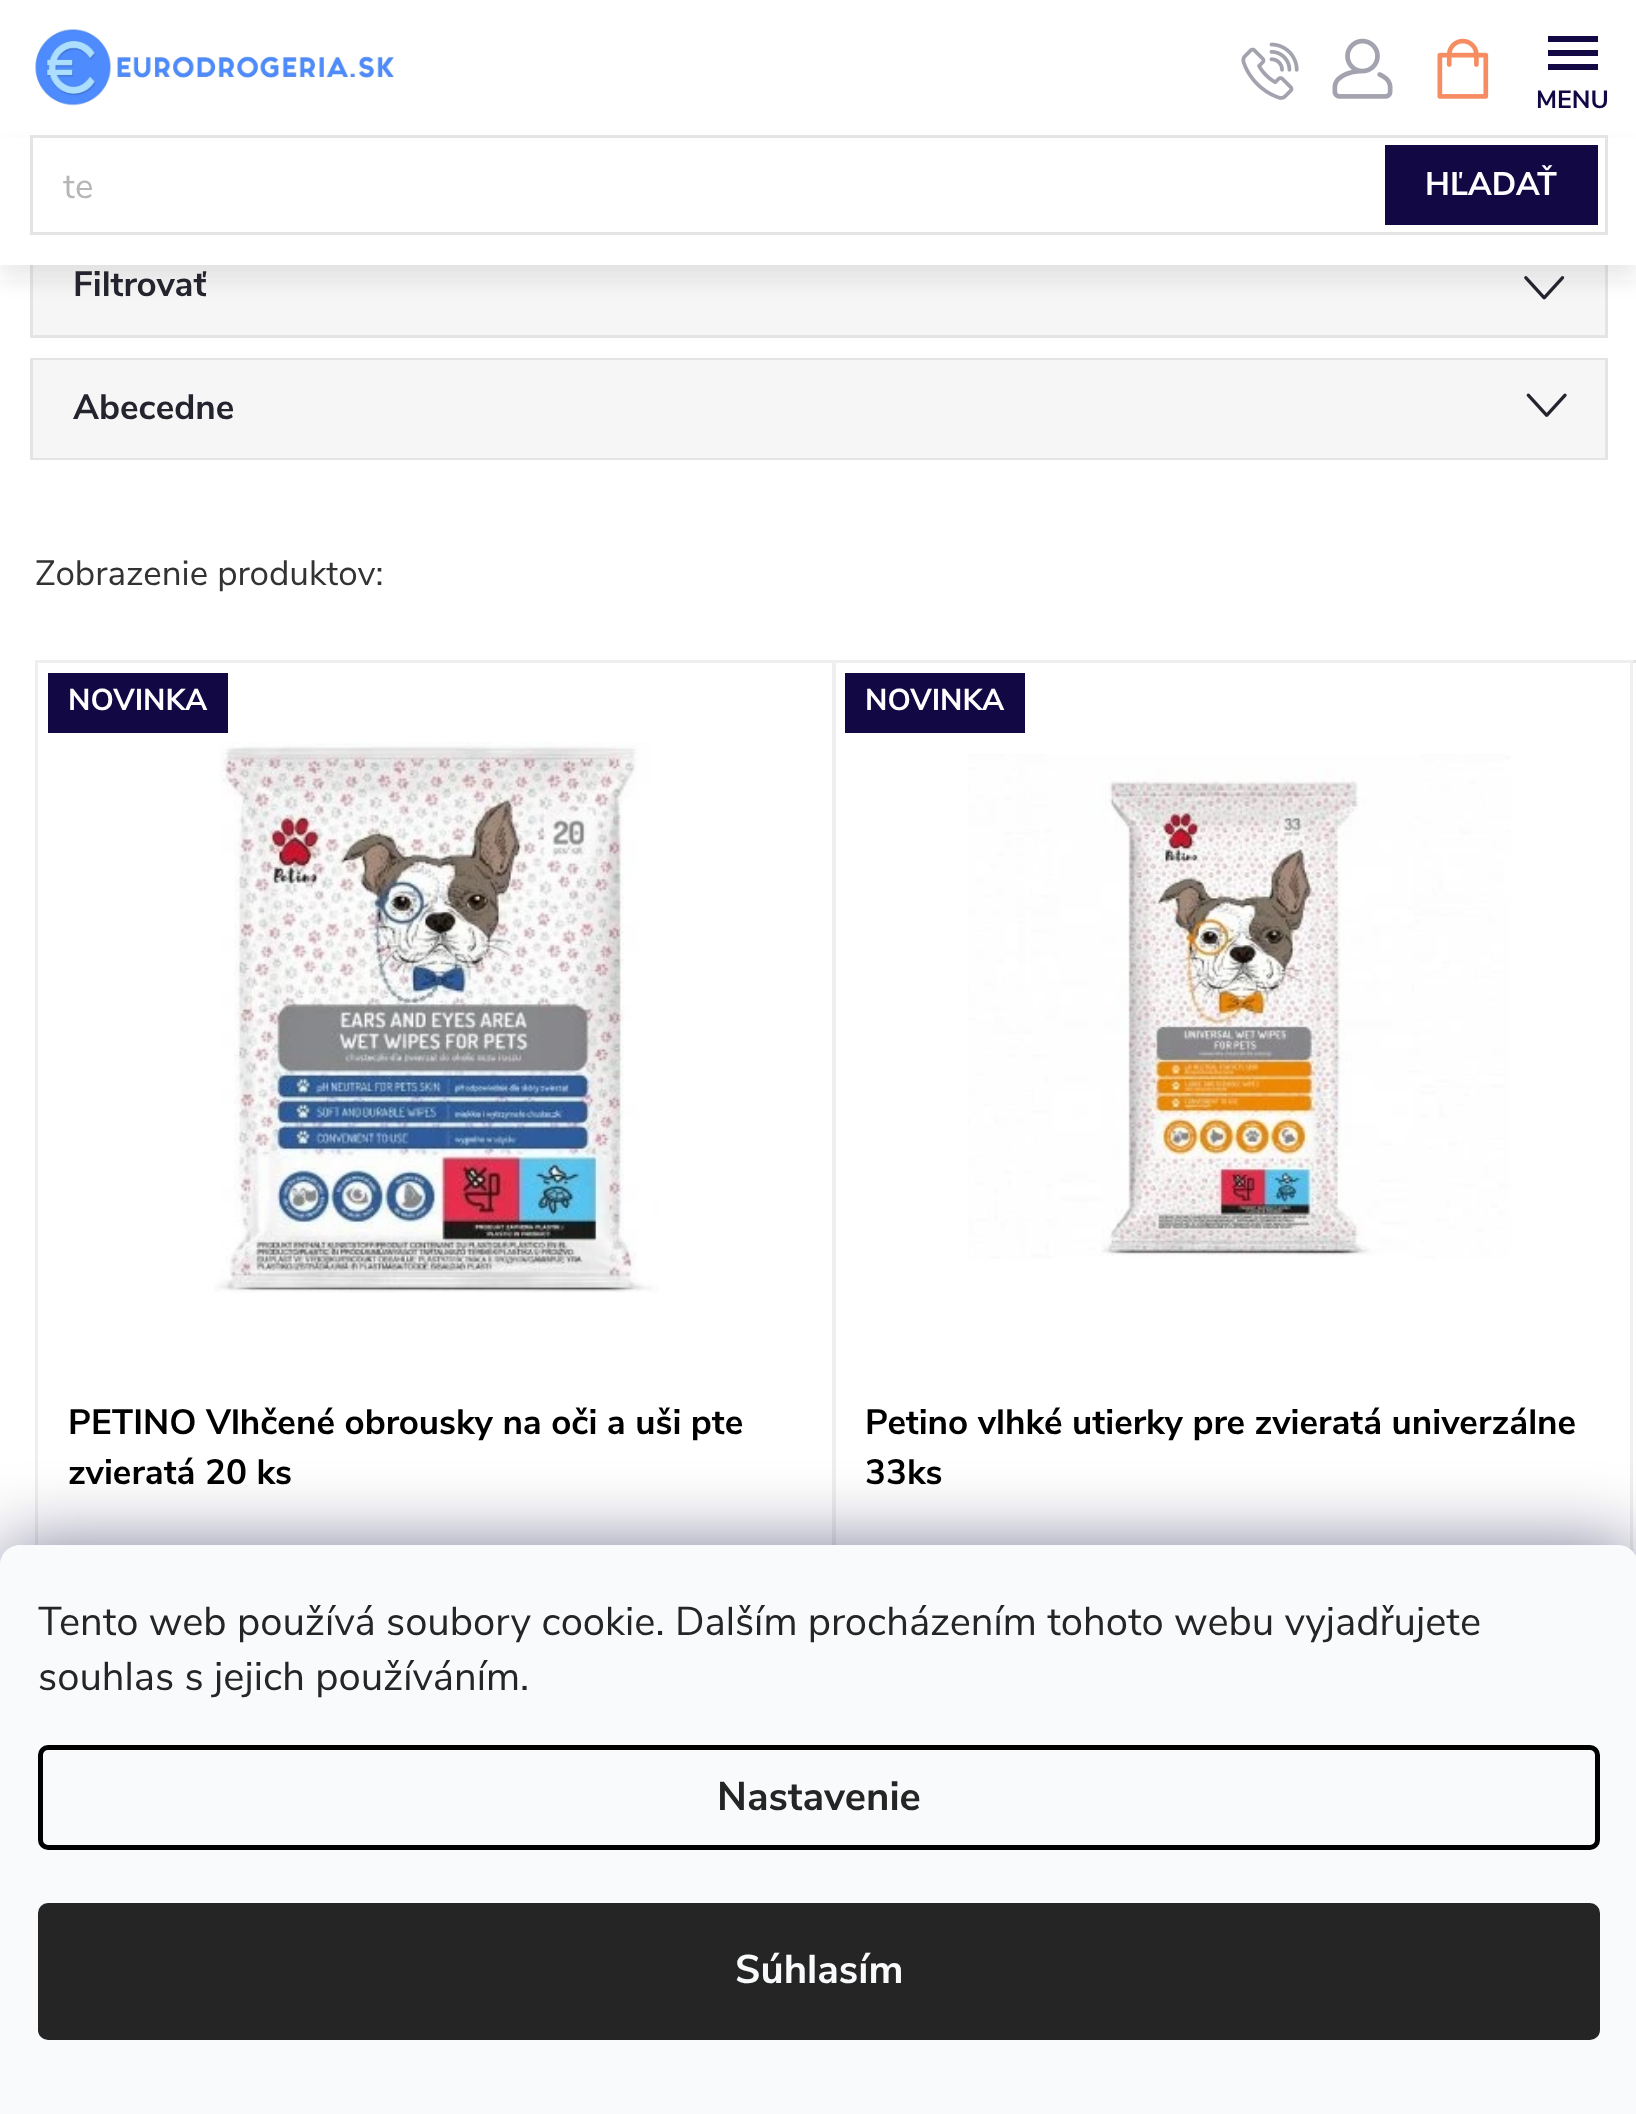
<svg xmlns="http://www.w3.org/2000/svg" width="1636" height="2114" viewBox="0 0 1636 2114">
  <defs>
    <filter id="blur1" x="-50%" y="-200%" width="200%" height="500%"><feGaussianBlur stdDeviation="10"/></filter>
    <filter id="blur2" x="-50%" y="-200%" width="200%" height="500%"><feGaussianBlur stdDeviation="37.5"/></filter>
  </defs>
  <rect width="100%" height="100%" fill="#ffffff"/>
  <image x="1241" y="42" width="58" height="58" href="img1.png"/>
  <image x="1332" y="38" width="61" height="61" href="img2.png"/>
  <path d="M1548 70H1598V64H1548ZM1548 56H1598V50H1548ZM1548 36V42H1598V36Z" fill="#110844"/>
  <text x="1536" y="108" font-family="Nunito Sans" font-size="25" font-weight="bold" fill="#110844">MENU</text>
  <rect x="33" y="265" width="1572" height="70" fill="#f6f6f6"/>
  <rect x="31.5" y="239.5" width="1575" height="97" fill="none" stroke="#e4e4e4" stroke-width="3"/>
  <image x="1524" y="276" width="41" height="24" href="img5.png"/>
  <rect x="0" y="150" width="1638" height="130" fill="#24242e" fill-opacity="0.1" filter="url(#blur1)"/>
  <rect x="0" y="138" width="1636" height="127" fill="#ffffff"/>
  <image x="35" y="29" width="359" height="77" href="img3.png"/>
  <image x="1437" y="38" width="52" height="61" href="img4.png"/>
  <rect x="31.5" y="136.5" width="1575" height="97" fill="none" stroke="#e4e4e4" stroke-width="3"/>
  <text x="63" y="198" font-family="Nunito Sans" font-size="35" fill="#b6b6b6">te</text>
  <rect x="1385" y="145" width="213" height="80" fill="#110844"/>
  <text x="1425" y="195" font-family="Nunito Sans" font-size="32.5" font-weight="bold" fill="#ffffff">HĽADAŤ</text>
  <text x="73" y="296" font-family="Nunito Sans" font-size="35" font-weight="bold" fill="#24242e">Filtrovať</text>
  <rect x="30" y="358" width="1578" height="2" fill="#e4e4e4"/>
  <rect x="30" y="358" width="3" height="102" fill="#e4e4e4"/>
  <rect x="33" y="360" width="1572" height="98" fill="#f6f6f6"/>
  <rect x="1605" y="360" width="3" height="100" fill="#e4e4e4"/>
  <rect x="33" y="458" width="1575" height="2" fill="#e4e4e4"/>
  <text x="73" y="419" font-family="Nunito Sans" font-size="35" font-weight="bold" fill="#24242e">Abecedne</text>
  <image x="1526" y="393" width="41" height="24" href="img6.png"/>
  <text x="35" y="585" font-family="Nunito Sans" font-size="35" fill="#333333">Zobrazenie produktov:</text>
  <rect x="1633" y="660" width="3" height="3" fill="#e4e4e4"/>
  <rect x="36.5" y="661.5" width="797" height="1080" fill="none" stroke="#efefef" stroke-width="3"/>
  <rect x="48" y="673" width="180" height="60" fill="#110844"/>
  <text x="68" y="710" font-family="Nunito Sans" font-size="30" font-weight="bold" fill="#ffffff">NOVINKA</text>
  <image x="214" y="742" width="445" height="551" href="img7.png"/>
  <text x="68" y="1434" font-family="Nunito Sans" font-size="35" font-weight="bold" fill="#000000">PETINO Vlhčené obrousky na oči a uši pte</text>
  <text x="68" y="1484" font-family="Nunito Sans" font-size="35" font-weight="bold" fill="#000000">zvieratá 20 ks</text>
  <rect x="834.5" y="661.5" width="797" height="1080" fill="none" stroke="#efefef" stroke-width="3"/>
  <rect x="845" y="673" width="180" height="60" fill="#110844"/>
  <text x="865" y="710" font-family="Nunito Sans" font-size="30" font-weight="bold" fill="#ffffff">NOVINKA</text>
  <image x="968" y="754" width="543" height="505" href="img8.png"/>
  <text x="865" y="1434" font-family="Nunito Sans" font-size="35" font-weight="bold" fill="#000000">Petino vlhké utierky pre zvieratá univerzálne</text>
  <text x="865" y="1484" font-family="Nunito Sans" font-size="35" font-weight="bold" fill="#000000">33ks</text>
  <rect x="0" y="1545" width="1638" height="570" rx="20" fill="#1b1939" fill-opacity="0.5" filter="url(#blur2)"/>
  <path d="M20 1545H1618C1629 1545 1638 1554 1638 1565V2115H0V1565C0 1554 9 1545 20 1545Z" fill="#f8fafb"/>
  <text x="38" y="1635" font-family="Nunito Sans" font-size="40" fill="#252525">Tento web používá soubory cookie. Dalším procházením tohoto webu vyjadřujete</text>
  <text x="38" y="1690" font-family="Nunito Sans" font-size="40" fill="#252525">souhlas s jejich používáním.</text>
  <rect x="40.5" y="1747.5" width="1557" height="100" rx="7.5" fill="none" stroke="#000000" stroke-width="5"/>
  <text x="717" y="1810" font-family="Nunito Sans" font-size="40" font-weight="bold" fill="#252525">Nastavenie</text>
  <rect x="38" y="1903" width="1562" height="137" rx="10" fill="#252525"/>
  <text x="735" y="1983" font-family="Nunito Sans" font-size="40" font-weight="bold" fill="#f8fafb">Súhlasím</text>
</svg>
